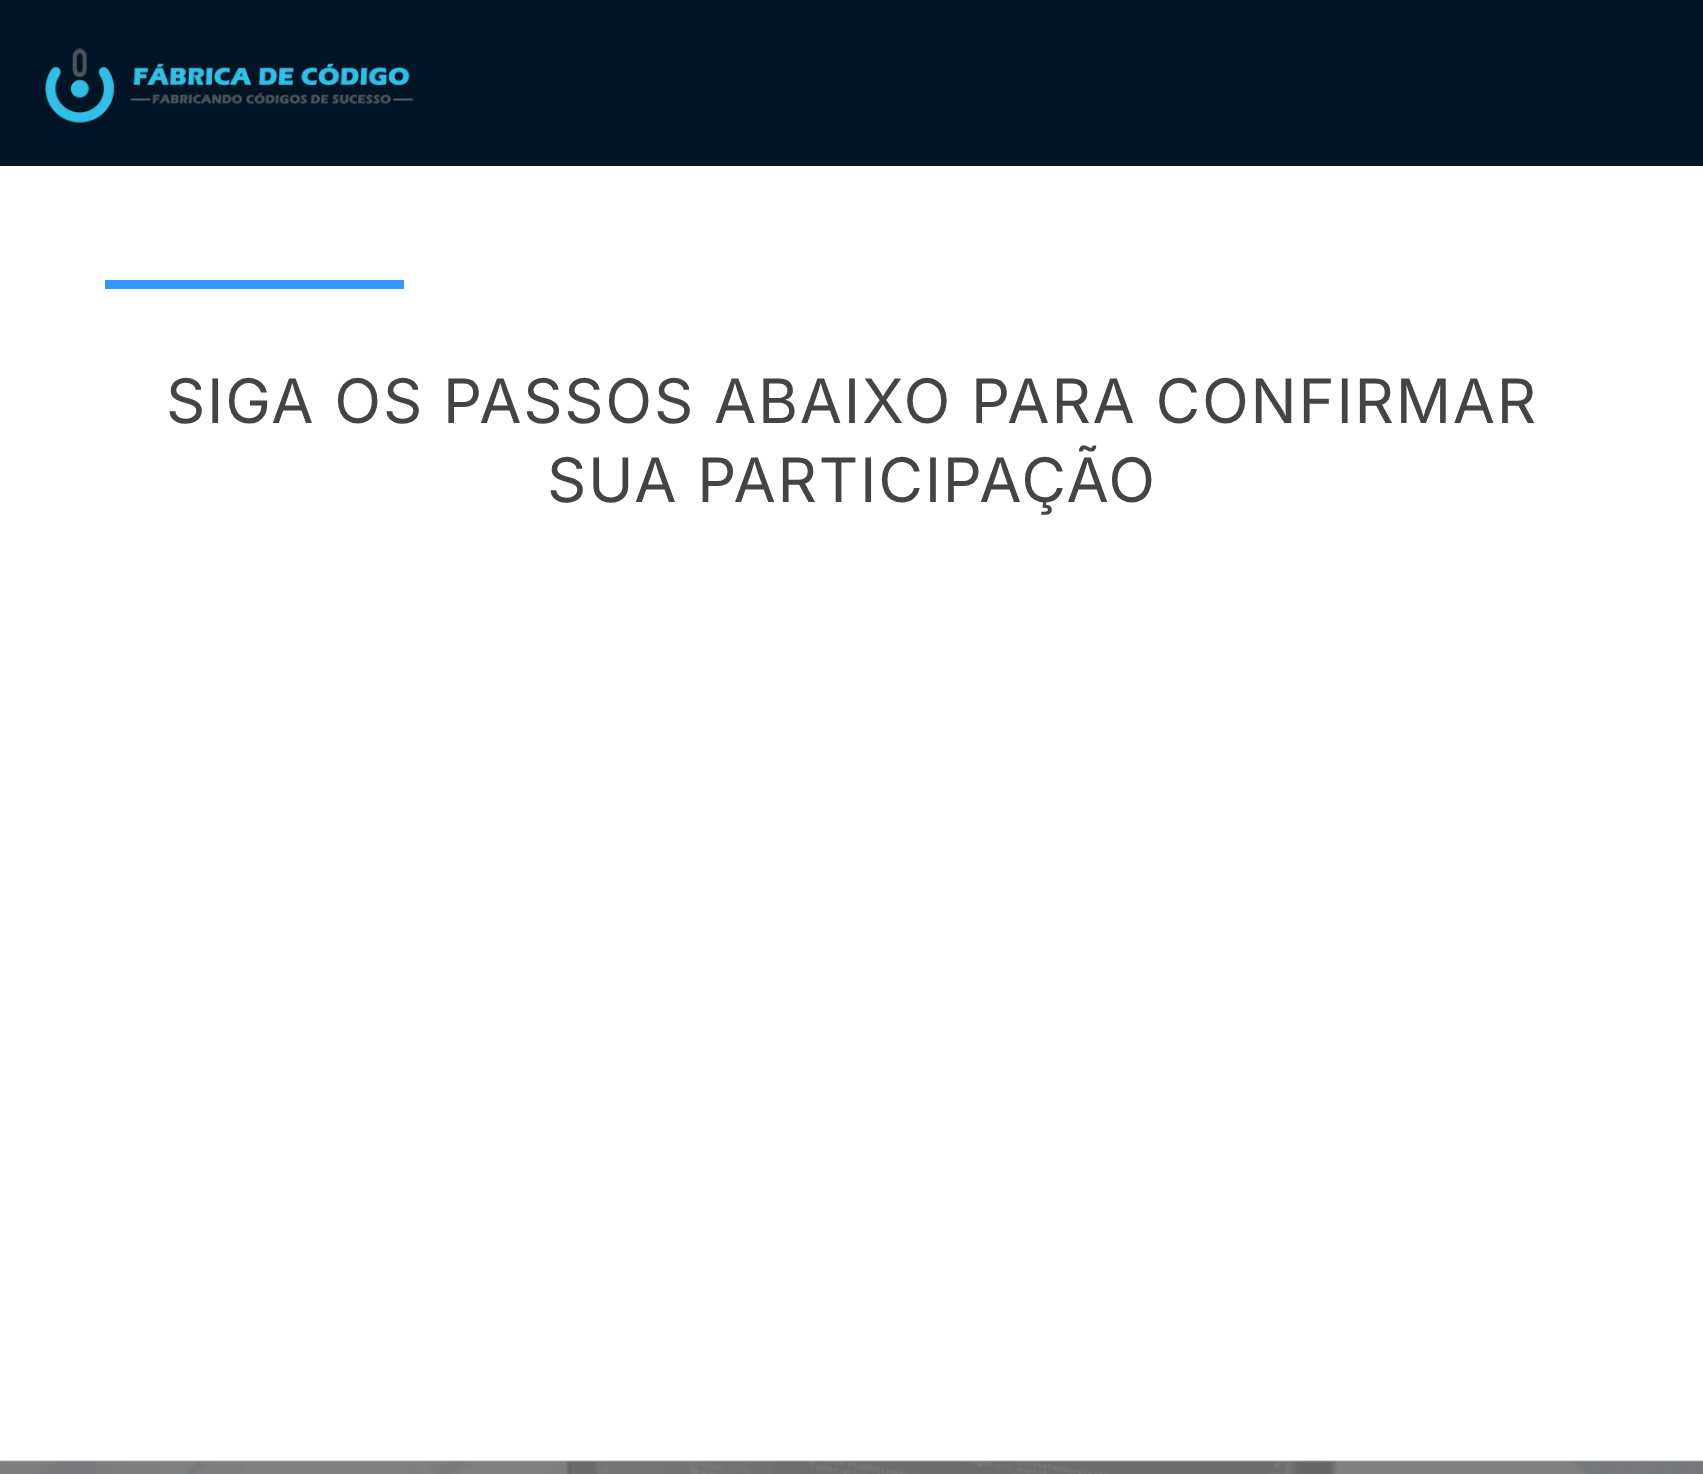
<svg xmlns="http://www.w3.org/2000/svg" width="1703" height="1474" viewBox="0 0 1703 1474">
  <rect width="100%" height="100%" fill="#ffffff"/>
  <rect x="0" y="0" width="1703" height="166" fill="#021526"/>
  <image x="44" y="48" width="370" height="75" href="img1.png"/>
  <rect x="0" y="1460" width="1703" height="2" fill="#d6d6d6"/>
  <rect x="105" y="280" width="299" height="9" fill="#3396ff"/>
  <text x="166" y="423" font-family="Inter" font-size="61.25" letter-spacing="1.75" fill="#444444">SIGA OS PASSOS ABAIXO PARA CONFIRMAR</text>
  <text x="547" y="502" font-family="Inter" font-size="61.25" letter-spacing="1.75" fill="#444444">SUA PARTICIPAÇÃO</text>
  <image x="0" y="1461" width="1703" height="13" href="img2.png"/>
</svg>
